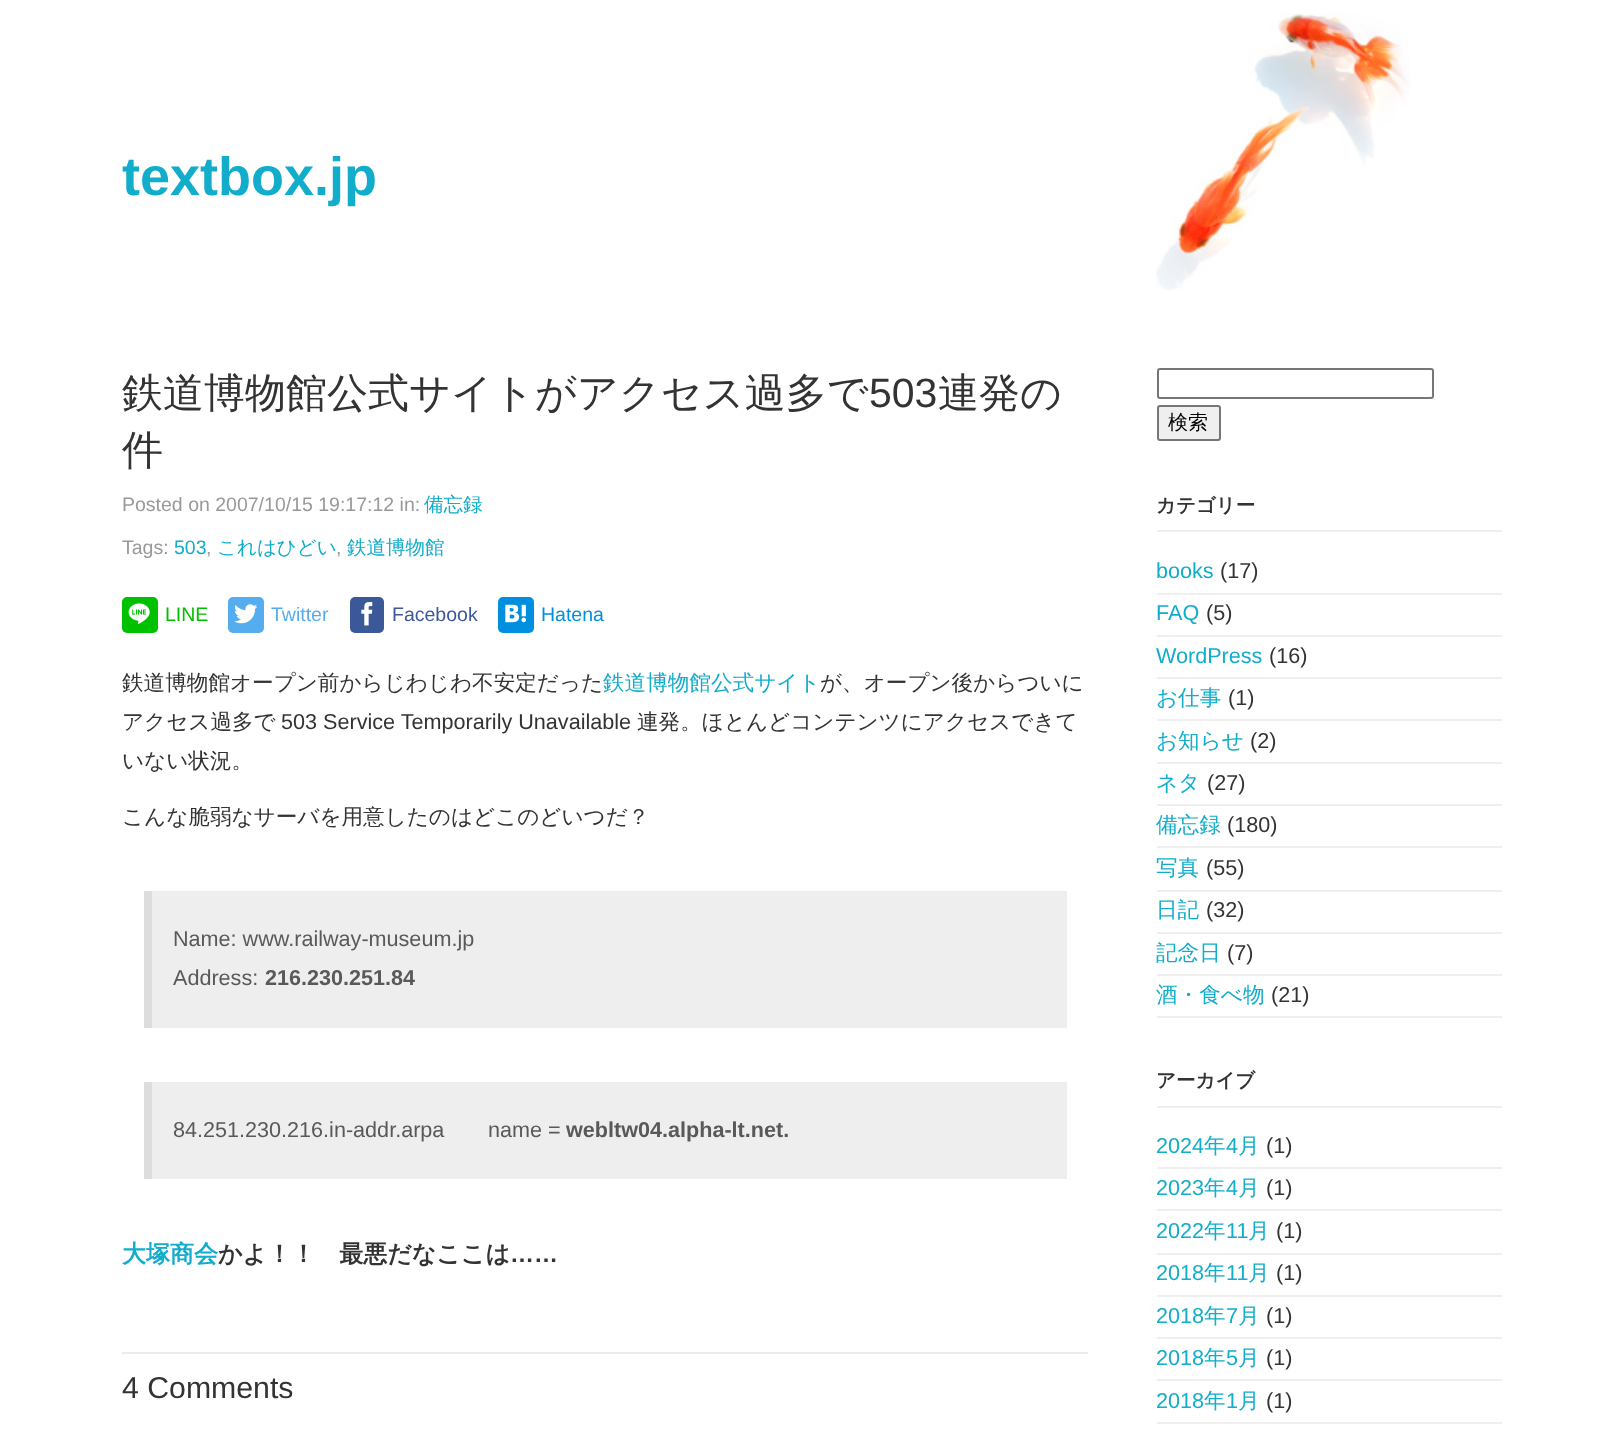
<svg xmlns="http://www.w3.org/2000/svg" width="1622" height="1437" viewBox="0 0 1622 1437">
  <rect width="100%" height="100%" fill="#ffffff"/>
  <image x="1156" y="13" width="254" height="278" href="img1.png"/>
  <text x="122" y="195" font-family="Liberation Sans" font-size="54" font-weight="bold" fill="#12adcb">textbox.jp</text>
  <text x="122" y="407" font-family="WenQuanYi Zen Hei" font-size="41" font-weight="500" fill="#333333">鉄道博物館公式サイトがアクセス過多で</text>
  <text x="869" y="407" font-family="Liberation Sans" font-size="41" fill="#333333">503</text>
  <text x="938" y="407" font-family="WenQuanYi Zen Hei" font-size="41" font-weight="500" fill="#333333">連発の</text>
  <text x="122" y="464" font-family="WenQuanYi Zen Hei" font-size="41" font-weight="500" fill="#333333">件</text>
  <text x="122" y="511" font-family="Liberation Sans" font-size="19.5" fill="#999999">Posted on 2007/10/15 19:17:12 in:</text>
  <text x="424" y="511" font-family="WenQuanYi Zen Hei" font-size="19.5" font-weight="500" fill="#12adcb">備忘録</text>
  <text x="122" y="554" font-family="Liberation Sans" font-size="19.5" fill="#999999">Tags:</text>
  <text x="174" y="554" font-family="Liberation Sans" font-size="19.5" fill="#12adcb">503</text>
  <text x="206" y="554" font-family="Liberation Sans" font-size="19.5" fill="#999999">,</text>
  <text x="217" y="554" font-family="WenQuanYi Zen Hei" font-size="19.5" font-weight="500" fill="#12adcb">これはひどい</text>
  <text x="336" y="554" font-family="Liberation Sans" font-size="19.5" fill="#999999">,</text>
  <text x="347" y="554" font-family="WenQuanYi Zen Hei" font-size="19.5" font-weight="500" fill="#12adcb">鉄道博物館</text>
  <rect x="122" y="597" width="36" height="36" rx="5" fill="#00c100"/>
  <image x="128" y="603" width="22" height="21" href="img2.png"/>
  <text x="165" y="621" font-family="Liberation Sans" font-size="19.5" fill="#00c100">LINE</text>
  <rect x="228" y="597" width="36" height="36" rx="5" fill="#55acee"/>
  <image x="234" y="604" width="24" height="20" href="img3.png"/>
  <text x="271" y="621" font-family="Liberation Sans" font-size="19.5" fill="#55acee">Twitter</text>
  <rect x="350" y="597" width="34" height="36" rx="5" fill="#3b5998"/>
  <image x="361" y="602" width="12" height="24" href="img4.png"/>
  <text x="392" y="621" font-family="Liberation Sans" font-size="19.5" fill="#3b5998">Facebook</text>
  <rect x="498" y="597" width="36" height="36" rx="5" fill="#008fde"/>
  <image x="505" y="604" width="22" height="19" href="img5.png"/>
  <text x="541" y="621" font-family="Liberation Sans" font-size="19.5" fill="#008fde">Hatena</text>
  <text x="122" y="690" font-family="WenQuanYi Zen Hei" font-size="21.6" font-weight="500" fill="#333333">鉄道博物館オープン前からじわじわ不安定だった</text>
  <text x="603" y="690" font-family="WenQuanYi Zen Hei" font-size="21.6" font-weight="500" fill="#12adcb">鉄道博物館公式サイト</text>
  <text x="820" y="690" font-family="WenQuanYi Zen Hei" font-size="21.6" font-weight="500" fill="#333333">が、オープン後からついに</text>
  <text x="122" y="729" font-family="WenQuanYi Zen Hei" font-size="21.6" font-weight="500" fill="#333333">アクセス過多で</text>
  <text x="281" y="729" font-family="Liberation Sans" font-size="21.6" fill="#333333">503 Service Temporarily Unavailable</text>
  <text x="637" y="729" font-family="WenQuanYi Zen Hei" font-size="21.6" font-weight="500" fill="#333333">連発。ほとんどコンテンツにアクセスできて</text>
  <text x="122" y="768" font-family="WenQuanYi Zen Hei" font-size="21.6" font-weight="500" fill="#333333">いない状況。</text>
  <text x="122" y="824" font-family="WenQuanYi Zen Hei" font-size="21.6" font-weight="500" fill="#333333">こんな脆弱なサーバを用意したのはどこのどいつだ？</text>
  <rect x="152" y="891" width="915" height="137" fill="#eeeeee"/>
  <rect x="144" y="891" width="8" height="137" fill="#dddddd"/>
  <text x="173" y="946" font-family="Liberation Sans" font-size="21.6" fill="#595959">Name: www.railway-museum.jp</text>
  <text x="173" y="985" font-family="Liberation Sans" font-size="21.6" fill="#595959">Address:</text>
  <text x="265" y="985" font-family="Liberation Sans" font-size="21.6" font-weight="bold" fill="#595959">216.230.251.84</text>
  <rect x="152" y="1082" width="915" height="97" fill="#eeeeee"/>
  <rect x="144" y="1082" width="8" height="97" fill="#dddddd"/>
  <text x="173" y="1137" font-family="Liberation Sans" font-size="21.6" fill="#595959">84.251.230.216.in-addr.arpa</text>
  <text x="488" y="1137" font-family="Liberation Sans" font-size="21.6" fill="#595959">name =</text>
  <text x="566" y="1137" font-family="Liberation Sans" font-size="21.6" font-weight="bold" fill="#595959">webltw04.alpha-lt.net.</text>
  <text x="122" y="1262" font-family="WenQuanYi Zen Hei" font-size="24" font-weight="bold" fill="#12adcb">大塚商会</text>
  <text x="218" y="1262" font-family="WenQuanYi Zen Hei" font-size="24" font-weight="bold" fill="#333333">かよ！！　最悪だなここは</text>
  <text x="510" y="1262" font-family="Liberation Sans" font-size="24" font-weight="bold" fill="#333333">……</text>
  <rect x="122" y="1352" width="966" height="2" fill="#ededed"/>
  <text x="122" y="1398" font-family="Liberation Sans" font-size="30.25" fill="#333333">4 Comments</text>
  <rect x="1158" y="369" width="275" height="29" rx="2" fill="none" stroke="#767676" stroke-width="2"/>
  <rect x="1158" y="406" width="62" height="34" rx="2" fill="#efefef" stroke="#767676" stroke-width="2"/>
  <text x="1168" y="429" font-family="WenQuanYi Zen Hei" font-size="20" font-weight="500" fill="#000000">検索</text>
  <rect x="1157" y="530" width="345" height="2" fill="#efefef"/>
  <text x="1156" y="512" font-family="WenQuanYi Zen Hei" font-size="19.5" font-weight="bold" fill="#333333">カテゴリー</text>
  <rect x="1157" y="593" width="345" height="2" fill="#efefef"/>
  <text x="1156" y="578" font-family="Liberation Sans" font-size="21.6" fill="#12adcb">books</text>
  <text x="1220" y="578" font-family="Liberation Sans" font-size="21.6" fill="#333333">(17)</text>
  <rect x="1157" y="635" width="345" height="2" fill="#efefef"/>
  <text x="1156" y="620" font-family="Liberation Sans" font-size="21.6" fill="#12adcb">FAQ</text>
  <text x="1206" y="620" font-family="Liberation Sans" font-size="21.6" fill="#333333">(5)</text>
  <rect x="1157" y="677" width="345" height="2" fill="#efefef"/>
  <text x="1156" y="663" font-family="Liberation Sans" font-size="21.6" fill="#12adcb">WordPress</text>
  <text x="1269" y="663" font-family="Liberation Sans" font-size="21.6" fill="#333333">(16)</text>
  <rect x="1157" y="719" width="345" height="2" fill="#efefef"/>
  <text x="1156" y="705" font-family="WenQuanYi Zen Hei" font-size="21.6" font-weight="500" fill="#12adcb">お仕事</text>
  <text x="1228" y="705" font-family="Liberation Sans" font-size="21.6" fill="#333333">(1)</text>
  <rect x="1157" y="762" width="345" height="2" fill="#efefef"/>
  <text x="1156" y="748" font-family="WenQuanYi Zen Hei" font-size="21.6" font-weight="500" fill="#12adcb">お知らせ</text>
  <text x="1250" y="748" font-family="Liberation Sans" font-size="21.6" fill="#333333">(2)</text>
  <rect x="1157" y="804" width="345" height="2" fill="#efefef"/>
  <text x="1156" y="790" font-family="WenQuanYi Zen Hei" font-size="21.6" font-weight="500" fill="#12adcb">ネタ</text>
  <text x="1207" y="790" font-family="Liberation Sans" font-size="21.6" fill="#333333">(27)</text>
  <rect x="1157" y="846" width="345" height="2" fill="#efefef"/>
  <text x="1156" y="832" font-family="WenQuanYi Zen Hei" font-size="21.6" font-weight="500" fill="#12adcb">備忘録</text>
  <text x="1227" y="832" font-family="Liberation Sans" font-size="21.6" fill="#333333">(180)</text>
  <rect x="1157" y="890" width="345" height="2" fill="#efefef"/>
  <text x="1156" y="875" font-family="WenQuanYi Zen Hei" font-size="21.6" font-weight="500" fill="#12adcb">写真</text>
  <text x="1206" y="875" font-family="Liberation Sans" font-size="21.6" fill="#333333">(55)</text>
  <rect x="1157" y="932" width="345" height="2" fill="#efefef"/>
  <text x="1156" y="917" font-family="WenQuanYi Zen Hei" font-size="21.6" font-weight="500" fill="#12adcb">日記</text>
  <text x="1206" y="917" font-family="Liberation Sans" font-size="21.6" fill="#333333">(32)</text>
  <rect x="1157" y="974" width="345" height="2" fill="#efefef"/>
  <text x="1156" y="960" font-family="WenQuanYi Zen Hei" font-size="21.6" font-weight="500" fill="#12adcb">記念日</text>
  <text x="1227" y="960" font-family="Liberation Sans" font-size="21.6" fill="#333333">(7)</text>
  <rect x="1157" y="1016" width="345" height="2" fill="#efefef"/>
  <text x="1156" y="1002" font-family="WenQuanYi Zen Hei" font-size="21.6" font-weight="500" fill="#12adcb">酒・食べ物</text>
  <text x="1271" y="1002" font-family="Liberation Sans" font-size="21.6" fill="#333333">(21)</text>
  <rect x="1157" y="1106" width="345" height="2" fill="#efefef"/>
  <text x="1156" y="1087" font-family="WenQuanYi Zen Hei" font-size="19.5" font-weight="bold" fill="#333333">アーカイブ</text>
  <rect x="1157" y="1167" width="345" height="2" fill="#efefef"/>
  <text x="1156" y="1153" font-family="Liberation Sans" font-size="21.6" fill="#12adcb">2024</text>
  <text x="1204" y="1153" font-family="WenQuanYi Zen Hei" font-size="21.6" font-weight="500" fill="#12adcb">年</text>
  <text x="1226" y="1153" font-family="Liberation Sans" font-size="21.6" fill="#12adcb">4</text>
  <text x="1238" y="1153" font-family="WenQuanYi Zen Hei" font-size="21.6" font-weight="500" fill="#12adcb">月</text>
  <text x="1266" y="1153" font-family="Liberation Sans" font-size="21.6" fill="#333333">(1)</text>
  <rect x="1157" y="1209" width="345" height="2" fill="#efefef"/>
  <text x="1156" y="1195" font-family="Liberation Sans" font-size="21.6" fill="#12adcb">2023</text>
  <text x="1204" y="1195" font-family="WenQuanYi Zen Hei" font-size="21.6" font-weight="500" fill="#12adcb">年</text>
  <text x="1226" y="1195" font-family="Liberation Sans" font-size="21.6" fill="#12adcb">4</text>
  <text x="1238" y="1195" font-family="WenQuanYi Zen Hei" font-size="21.6" font-weight="500" fill="#12adcb">月</text>
  <text x="1266" y="1195" font-family="Liberation Sans" font-size="21.6" fill="#333333">(1)</text>
  <rect x="1157" y="1253" width="345" height="2" fill="#efefef"/>
  <text x="1156" y="1238" font-family="Liberation Sans" font-size="21.6" fill="#12adcb">2022</text>
  <text x="1204" y="1238" font-family="WenQuanYi Zen Hei" font-size="21.6" font-weight="500" fill="#12adcb">年</text>
  <text x="1226" y="1238" font-family="Liberation Sans" font-size="21.6" fill="#12adcb">11</text>
  <text x="1248" y="1238" font-family="WenQuanYi Zen Hei" font-size="21.6" font-weight="500" fill="#12adcb">月</text>
  <text x="1276" y="1238" font-family="Liberation Sans" font-size="21.6" fill="#333333">(1)</text>
  <rect x="1157" y="1295" width="345" height="2" fill="#efefef"/>
  <text x="1156" y="1280" font-family="Liberation Sans" font-size="21.6" fill="#12adcb">2018</text>
  <text x="1204" y="1280" font-family="WenQuanYi Zen Hei" font-size="21.6" font-weight="500" fill="#12adcb">年</text>
  <text x="1226" y="1280" font-family="Liberation Sans" font-size="21.6" fill="#12adcb">11</text>
  <text x="1248" y="1280" font-family="WenQuanYi Zen Hei" font-size="21.6" font-weight="500" fill="#12adcb">月</text>
  <text x="1276" y="1280" font-family="Liberation Sans" font-size="21.6" fill="#333333">(1)</text>
  <rect x="1157" y="1337" width="345" height="2" fill="#efefef"/>
  <text x="1156" y="1323" font-family="Liberation Sans" font-size="21.6" fill="#12adcb">2018</text>
  <text x="1204" y="1323" font-family="WenQuanYi Zen Hei" font-size="21.6" font-weight="500" fill="#12adcb">年</text>
  <text x="1226" y="1323" font-family="Liberation Sans" font-size="21.6" fill="#12adcb">7</text>
  <text x="1238" y="1323" font-family="WenQuanYi Zen Hei" font-size="21.6" font-weight="500" fill="#12adcb">月</text>
  <text x="1266" y="1323" font-family="Liberation Sans" font-size="21.6" fill="#333333">(1)</text>
  <rect x="1157" y="1379" width="345" height="2" fill="#efefef"/>
  <text x="1156" y="1365" font-family="Liberation Sans" font-size="21.6" fill="#12adcb">2018</text>
  <text x="1204" y="1365" font-family="WenQuanYi Zen Hei" font-size="21.6" font-weight="500" fill="#12adcb">年</text>
  <text x="1226" y="1365" font-family="Liberation Sans" font-size="21.6" fill="#12adcb">5</text>
  <text x="1238" y="1365" font-family="WenQuanYi Zen Hei" font-size="21.6" font-weight="500" fill="#12adcb">月</text>
  <text x="1266" y="1365" font-family="Liberation Sans" font-size="21.6" fill="#333333">(1)</text>
  <rect x="1157" y="1422" width="345" height="2" fill="#efefef"/>
  <text x="1156" y="1408" font-family="Liberation Sans" font-size="21.6" fill="#12adcb">2018</text>
  <text x="1204" y="1408" font-family="WenQuanYi Zen Hei" font-size="21.6" font-weight="500" fill="#12adcb">年</text>
  <text x="1226" y="1408" font-family="Liberation Sans" font-size="21.6" fill="#12adcb">1</text>
  <text x="1238" y="1408" font-family="WenQuanYi Zen Hei" font-size="21.6" font-weight="500" fill="#12adcb">月</text>
  <text x="1266" y="1408" font-family="Liberation Sans" font-size="21.6" fill="#333333">(1)</text>
</svg>
